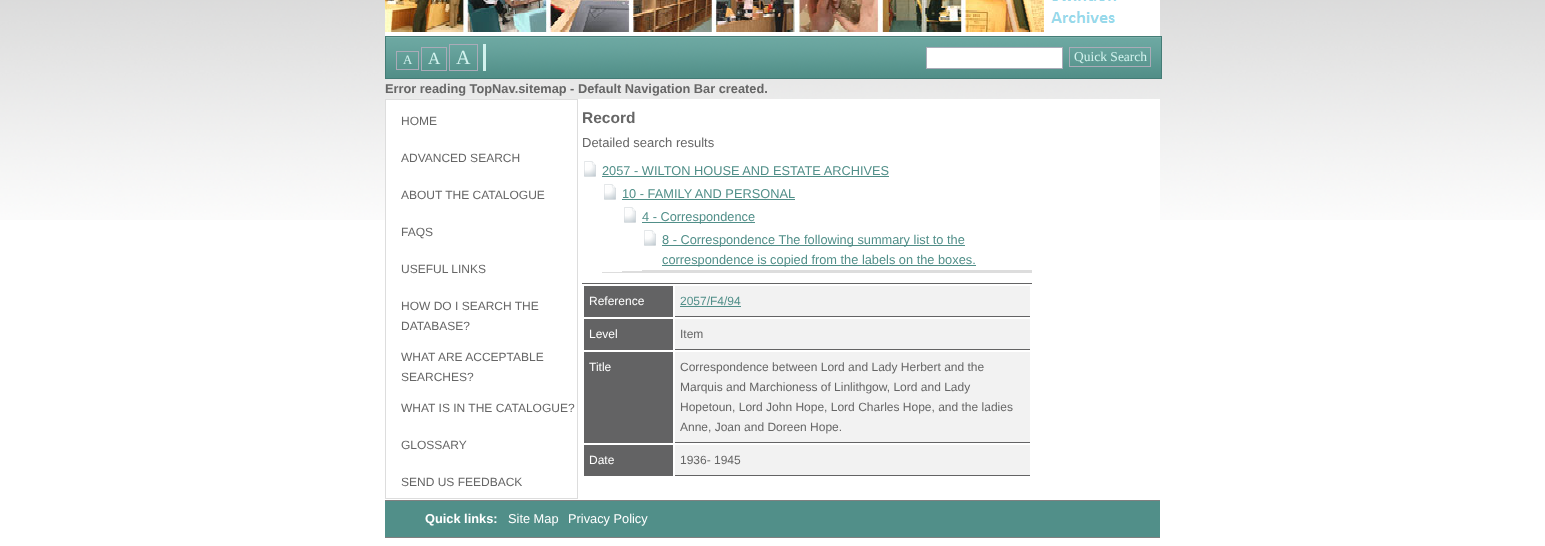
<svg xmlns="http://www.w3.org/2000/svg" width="1545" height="546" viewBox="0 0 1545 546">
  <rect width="100%" height="100%" fill="#ffffff"/>
  <image x="0" y="0" width="1545" height="220" href="img1.png"/>
  <rect x="385" y="0" width="775" height="36" fill="#ffffff"/>
  <image x="385" y="0" width="732" height="32" href="img2.png"/>
  <image x="386" y="37" width="775" height="41" href="img3.png"/>
  <rect x="385.5" y="36.5" width="776" height="42" fill="none" stroke="#447c76"/>
  <rect x="483" y="44" width="3" height="27" fill="#d2f2ee"/>
  <rect x="396.5" y="51.5" width="22" height="18" fill="none" stroke="#aaabb8"/>
  <text x="403" y="64" font-family="Liberation Serif" font-size="12.8" fill="#d2f2ee">A</text>
  <rect x="421.5" y="47.5" width="25" height="23" fill="none" stroke="#aaabb8"/>
  <text x="428" y="64" font-family="Liberation Serif" font-size="17" fill="#d2f2ee">A</text>
  <rect x="449.5" y="44.5" width="28" height="26" fill="none" stroke="#aaabb8"/>
  <text x="456" y="64" font-family="Liberation Serif" font-size="20" fill="#d2f2ee">A</text>
  <rect x="926.5" y="47.5" width="136" height="21" fill="#ffffff" stroke="#aaabb8"/>
  <rect x="1069.5" y="47.5" width="81" height="19" fill="none" stroke="#aaabb8"/>
  <text x="1074" y="61" font-family="Liberation Serif" font-size="13.5" fill="#d2f2ee">Quick Search</text>
  <text x="385" y="93" font-family="Liberation Sans" font-size="12.8" font-weight="bold" fill="#666666">Error reading TopNav.sitemap - Default Navigation Bar created.</text>
  <rect x="386" y="99" width="774" height="121" fill="#ffffff"/>
  <rect x="385.5" y="99.5" width="192" height="399" fill="none" stroke="#dddddd"/>
  <text x="401" y="125" font-family="Liberation Sans" font-size="12" fill="#666666">HOME</text>
  <text x="401" y="162" font-family="Liberation Sans" font-size="12" fill="#666666">ADVANCED SEARCH</text>
  <text x="401" y="199" font-family="Liberation Sans" font-size="12" fill="#666666">ABOUT THE CATALOGUE</text>
  <text x="401" y="236" font-family="Liberation Sans" font-size="12" fill="#666666">FAQS</text>
  <text x="401" y="273" font-family="Liberation Sans" font-size="12" fill="#666666">USEFUL LINKS</text>
  <text x="401" y="310" font-family="Liberation Sans" font-size="12" fill="#666666">HOW DO I SEARCH THE</text>
  <text x="401" y="330" font-family="Liberation Sans" font-size="12" fill="#666666">DATABASE?</text>
  <text x="401" y="361" font-family="Liberation Sans" font-size="12" fill="#666666">WHAT ARE ACCEPTABLE</text>
  <text x="401" y="381" font-family="Liberation Sans" font-size="12" fill="#666666">SEARCHES?</text>
  <text x="401" y="412" font-family="Liberation Sans" font-size="12" fill="#666666">WHAT IS IN THE CATALOGUE?</text>
  <text x="401" y="449" font-family="Liberation Sans" font-size="12" fill="#666666">GLOSSARY</text>
  <text x="401" y="486" font-family="Liberation Sans" font-size="12" fill="#666666">SEND US FEEDBACK</text>
  <text x="582" y="123" font-family="Liberation Sans" font-size="15.5" font-weight="bold" fill="#666666">Record</text>
  <text x="582" y="147" font-family="Liberation Sans" font-size="13" fill="#666666">Detailed search results</text>
  <image x="584" y="161" width="12" height="16" href="img4.png"/>
  <text x="602" y="175" font-family="Liberation Sans" font-size="12.8" fill="#518f89">2057 - WILTON HOUSE AND ESTATE ARCHIVES</text>
  <rect x="602" y="176" width="287" height="1" fill="#518f89"/>
  <rect x="602" y="272" width="430" height="1" fill="#dddddd"/>
  <image x="604" y="184" width="12" height="16" href="img4.png"/>
  <text x="622" y="198" font-family="Liberation Sans" font-size="12.8" fill="#518f89">10 - FAMILY AND PERSONAL</text>
  <rect x="622" y="199" width="173" height="1" fill="#518f89"/>
  <rect x="622" y="271" width="410" height="1" fill="#dddddd"/>
  <image x="624" y="207" width="12" height="16" href="img4.png"/>
  <rect x="642" y="222" width="113" height="1" fill="#518f89"/>
  <text x="642" y="221" font-family="Liberation Sans" font-size="12.8" fill="#518f89">4 - Correspondence</text>
  <rect x="642" y="270" width="390" height="1" fill="#dddddd"/>
  <image x="644" y="230" width="12" height="16" href="img4.png"/>
  <rect x="662" y="245" width="303" height="1" fill="#518f89"/>
  <text x="662" y="244" font-family="Liberation Sans" font-size="12.8" fill="#518f89">8 - Correspondence The following summary list to the</text>
  <rect x="662" y="265" width="314" height="1" fill="#518f89"/>
  <text x="662" y="264" font-family="Liberation Sans" font-size="12.8" fill="#518f89">correspondence is copied from the labels on the boxes.</text>
  <rect x="582" y="283" width="450" height="1" fill="#636364"/>
  <rect x="584" y="286" width="89" height="31" fill="#636364"/>
  <text x="589" y="305" font-family="Liberation Sans" font-size="12" fill="#ffffff">Reference</text>
  <rect x="675" y="286" width="355" height="30" fill="#f2f2f2"/>
  <rect x="675" y="316" width="355" height="1" fill="#636364"/>
  <text x="680" y="305" font-family="Liberation Sans" font-size="12" fill="#518f89">2057/F4/94</text>
  <rect x="680" y="306" width="61" height="1" fill="#518f89"/>
  <rect x="584" y="319" width="89" height="31" fill="#636364"/>
  <text x="589" y="338" font-family="Liberation Sans" font-size="12" fill="#ffffff">Level</text>
  <rect x="675" y="319" width="355" height="30" fill="#f2f2f2"/>
  <rect x="675" y="349" width="355" height="1" fill="#636364"/>
  <text x="680" y="338" font-family="Liberation Sans" font-size="12" fill="#666666">Item</text>
  <rect x="584" y="352" width="89" height="91" fill="#636364"/>
  <text x="589" y="371" font-family="Liberation Sans" font-size="12" fill="#ffffff">Title</text>
  <rect x="675" y="352" width="355" height="90" fill="#f2f2f2"/>
  <rect x="675" y="442" width="355" height="1" fill="#636364"/>
  <text x="680" y="371" font-family="Liberation Sans" font-size="12" fill="#666666">Correspondence between Lord and Lady Herbert and the</text>
  <text x="680" y="391" font-family="Liberation Sans" font-size="12" fill="#666666">Marquis and Marchioness of Linlithgow, Lord and Lady</text>
  <text x="680" y="411" font-family="Liberation Sans" font-size="12" fill="#666666">Hopetoun, Lord John Hope, Lord Charles Hope, and the ladies</text>
  <text x="680" y="431" font-family="Liberation Sans" font-size="12" fill="#666666">Anne, Joan and Doreen Hope.</text>
  <rect x="584" y="445" width="89" height="31" fill="#636364"/>
  <text x="589" y="464" font-family="Liberation Sans" font-size="12" fill="#ffffff">Date</text>
  <rect x="675" y="445" width="355" height="30" fill="#f2f2f2"/>
  <rect x="675" y="475" width="355" height="1" fill="#636364"/>
  <text x="680" y="464" font-family="Liberation Sans" font-size="12" fill="#666666">1936- 1945</text>
  <rect x="385" y="501" width="775" height="36" fill="#518f89"/>
  <rect x="385" y="500" width="775" height="1" fill="#808080"/>
  <rect x="385" y="537" width="775" height="1" fill="#808080"/>
  <text x="425" y="523" font-family="Liberation Sans" font-size="12.8" font-weight="bold" fill="#ffffff">Quick links:</text>
  <text x="508" y="523" font-family="Liberation Sans" font-size="12.8" fill="#ffffff">Site Map</text>
  <text x="568" y="523" font-family="Liberation Sans" font-size="12.8" fill="#ffffff">Privacy Policy</text>
</svg>
